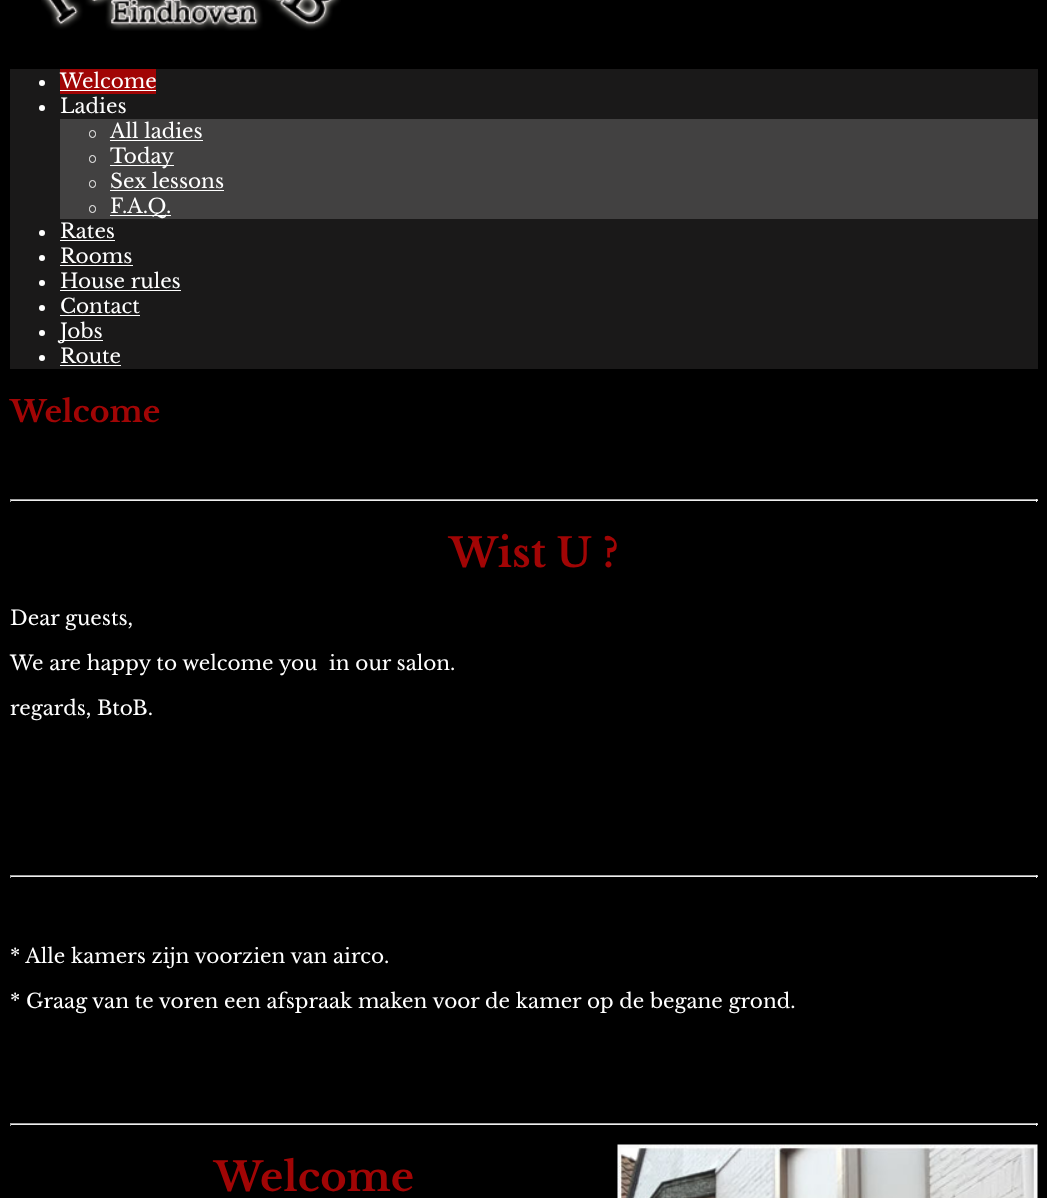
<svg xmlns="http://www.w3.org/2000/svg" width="1047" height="1198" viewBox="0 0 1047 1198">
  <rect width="100%" height="100%" fill="#000000"/>
  <image x="41" y="0" width="300" height="31" href="img1.png"/>
  <rect x="10" y="69" width="1028" height="300" fill="#1a1919"/>
  <circle cx="42" cy="83" r="3" fill="#ffffff"/>
  <rect x="60" y="69" width="96" height="25" fill="#a10505"/>
  <text x="60" y="88" font-family="Libre Baskerville" font-size="20" fill="#ffffff">Welcome</text>
  <rect x="60" y="90" width="96" height="1" fill="#ffffff"/>
  <circle cx="42" cy="108" r="3" fill="#ffffff"/>
  <text x="60" y="113" font-family="Libre Baskerville" font-size="20" fill="#ffffff">Ladies</text>
  <rect x="60" y="119" width="978" height="100" fill="#424141"/>
  <rect x="89.5" y="130.5" width="6" height="7" rx="3" fill="none" stroke="#ffffff"/>
  <text x="110" y="138" font-family="Libre Baskerville" font-size="20" fill="#ffffff">All ladies</text>
  <rect x="110" y="140" width="93" height="1" fill="#ffffff"/>
  <rect x="89.5" y="155.5" width="6" height="7" rx="3" fill="none" stroke="#ffffff"/>
  <rect x="110" y="165" width="64" height="1" fill="#ffffff"/>
  <text x="110" y="163" font-family="Libre Baskerville" font-size="20" fill="#ffffff">Today</text>
  <rect x="89.5" y="180.5" width="6" height="7" rx="3" fill="none" stroke="#ffffff"/>
  <text x="110" y="188" font-family="Libre Baskerville" font-size="20" fill="#ffffff">Sex lessons</text>
  <rect x="110" y="190" width="114" height="1" fill="#ffffff"/>
  <rect x="89.5" y="205.5" width="6" height="7" rx="3" fill="none" stroke="#ffffff"/>
  <rect x="110" y="215" width="61" height="1" fill="#ffffff"/>
  <text x="110" y="213" font-family="Libre Baskerville" font-size="20" fill="#ffffff">F.A.Q.</text>
  <circle cx="42" cy="233" r="3" fill="#ffffff"/>
  <text x="60" y="238" font-family="Libre Baskerville" font-size="20" fill="#ffffff">Rates</text>
  <rect x="60" y="240" width="55" height="1" fill="#ffffff"/>
  <circle cx="42" cy="258" r="3" fill="#ffffff"/>
  <text x="60" y="263" font-family="Libre Baskerville" font-size="20" fill="#ffffff">Rooms</text>
  <rect x="60" y="265" width="73" height="1" fill="#ffffff"/>
  <circle cx="42" cy="283" r="3" fill="#ffffff"/>
  <text x="60" y="288" font-family="Libre Baskerville" font-size="20" fill="#ffffff">House rules</text>
  <rect x="60" y="290" width="121" height="1" fill="#ffffff"/>
  <circle cx="42" cy="308" r="3" fill="#ffffff"/>
  <text x="60" y="313" font-family="Libre Baskerville" font-size="20" fill="#ffffff">Contact</text>
  <rect x="60" y="315" width="80" height="1" fill="#ffffff"/>
  <circle cx="42" cy="333" r="3" fill="#ffffff"/>
  <rect x="60" y="340" width="43" height="1" fill="#ffffff"/>
  <text x="60" y="338" font-family="Libre Baskerville" font-size="20" fill="#ffffff">Jobs</text>
  <circle cx="42" cy="358" r="3" fill="#ffffff"/>
  <text x="60" y="363" font-family="Libre Baskerville" font-size="20" fill="#ffffff">Route</text>
  <rect x="60" y="365" width="61" height="1" fill="#ffffff"/>
  <text x="10" y="422" font-family="Libre Baskerville" font-size="30" font-weight="bold" fill="#a10505">Welcome</text>
  <rect x="10" y="499" width="1028" height="1" fill="#9f9f9f"/>
  <rect x="1036" y="499" width="1" height="3" fill="#eeeeee"/>
  <rect x="10" y="500" width="1028" height="1" fill="#eeeeee"/>
  <rect x="10" y="499" width="1" height="3" fill="#9f9f9f"/>
  <text x="449" y="567" font-family="Libre Baskerville" font-size="40" font-weight="bold" fill="#a10505">Wist U ?</text>
  <text x="10" y="625" font-family="Libre Baskerville" font-size="20" fill="#ffffff">Dear guests,</text>
  <text x="10" y="670" font-family="Libre Baskerville" font-size="20" fill="#ffffff" xml:space="preserve">We are happy to welcome you  in our salon.</text>
  <text x="10" y="715" font-family="Libre Baskerville" font-size="20" fill="#ffffff">regards, BtoB.</text>
  <rect x="10" y="875" width="1028" height="1" fill="#9f9f9f"/>
  <rect x="1036" y="875" width="1" height="3" fill="#eeeeee"/>
  <rect x="10" y="876" width="1028" height="1" fill="#eeeeee"/>
  <rect x="10" y="875" width="1" height="3" fill="#9f9f9f"/>
  <text x="10" y="963" font-family="Libre Baskerville" font-size="20" fill="#ffffff">* Alle kamers zijn voorzien van airco.</text>
  <text x="10" y="1008" font-family="Libre Baskerville" font-size="20" fill="#ffffff">* Graag van te voren een afspraak maken voor de kamer op de begane grond.</text>
  <rect x="10" y="1123" width="1028" height="1" fill="#9f9f9f"/>
  <rect x="1036" y="1123" width="1" height="3" fill="#eeeeee"/>
  <rect x="10" y="1124" width="1028" height="1" fill="#eeeeee"/>
  <rect x="10" y="1123" width="1" height="3" fill="#9f9f9f"/>
  <text x="214" y="1191" font-family="Libre Baskerville" font-size="40" font-weight="bold" fill="#a10505">Welcome</text>
  <image x="617" y="1144" width="421" height="54" href="img2.png"/>
</svg>
